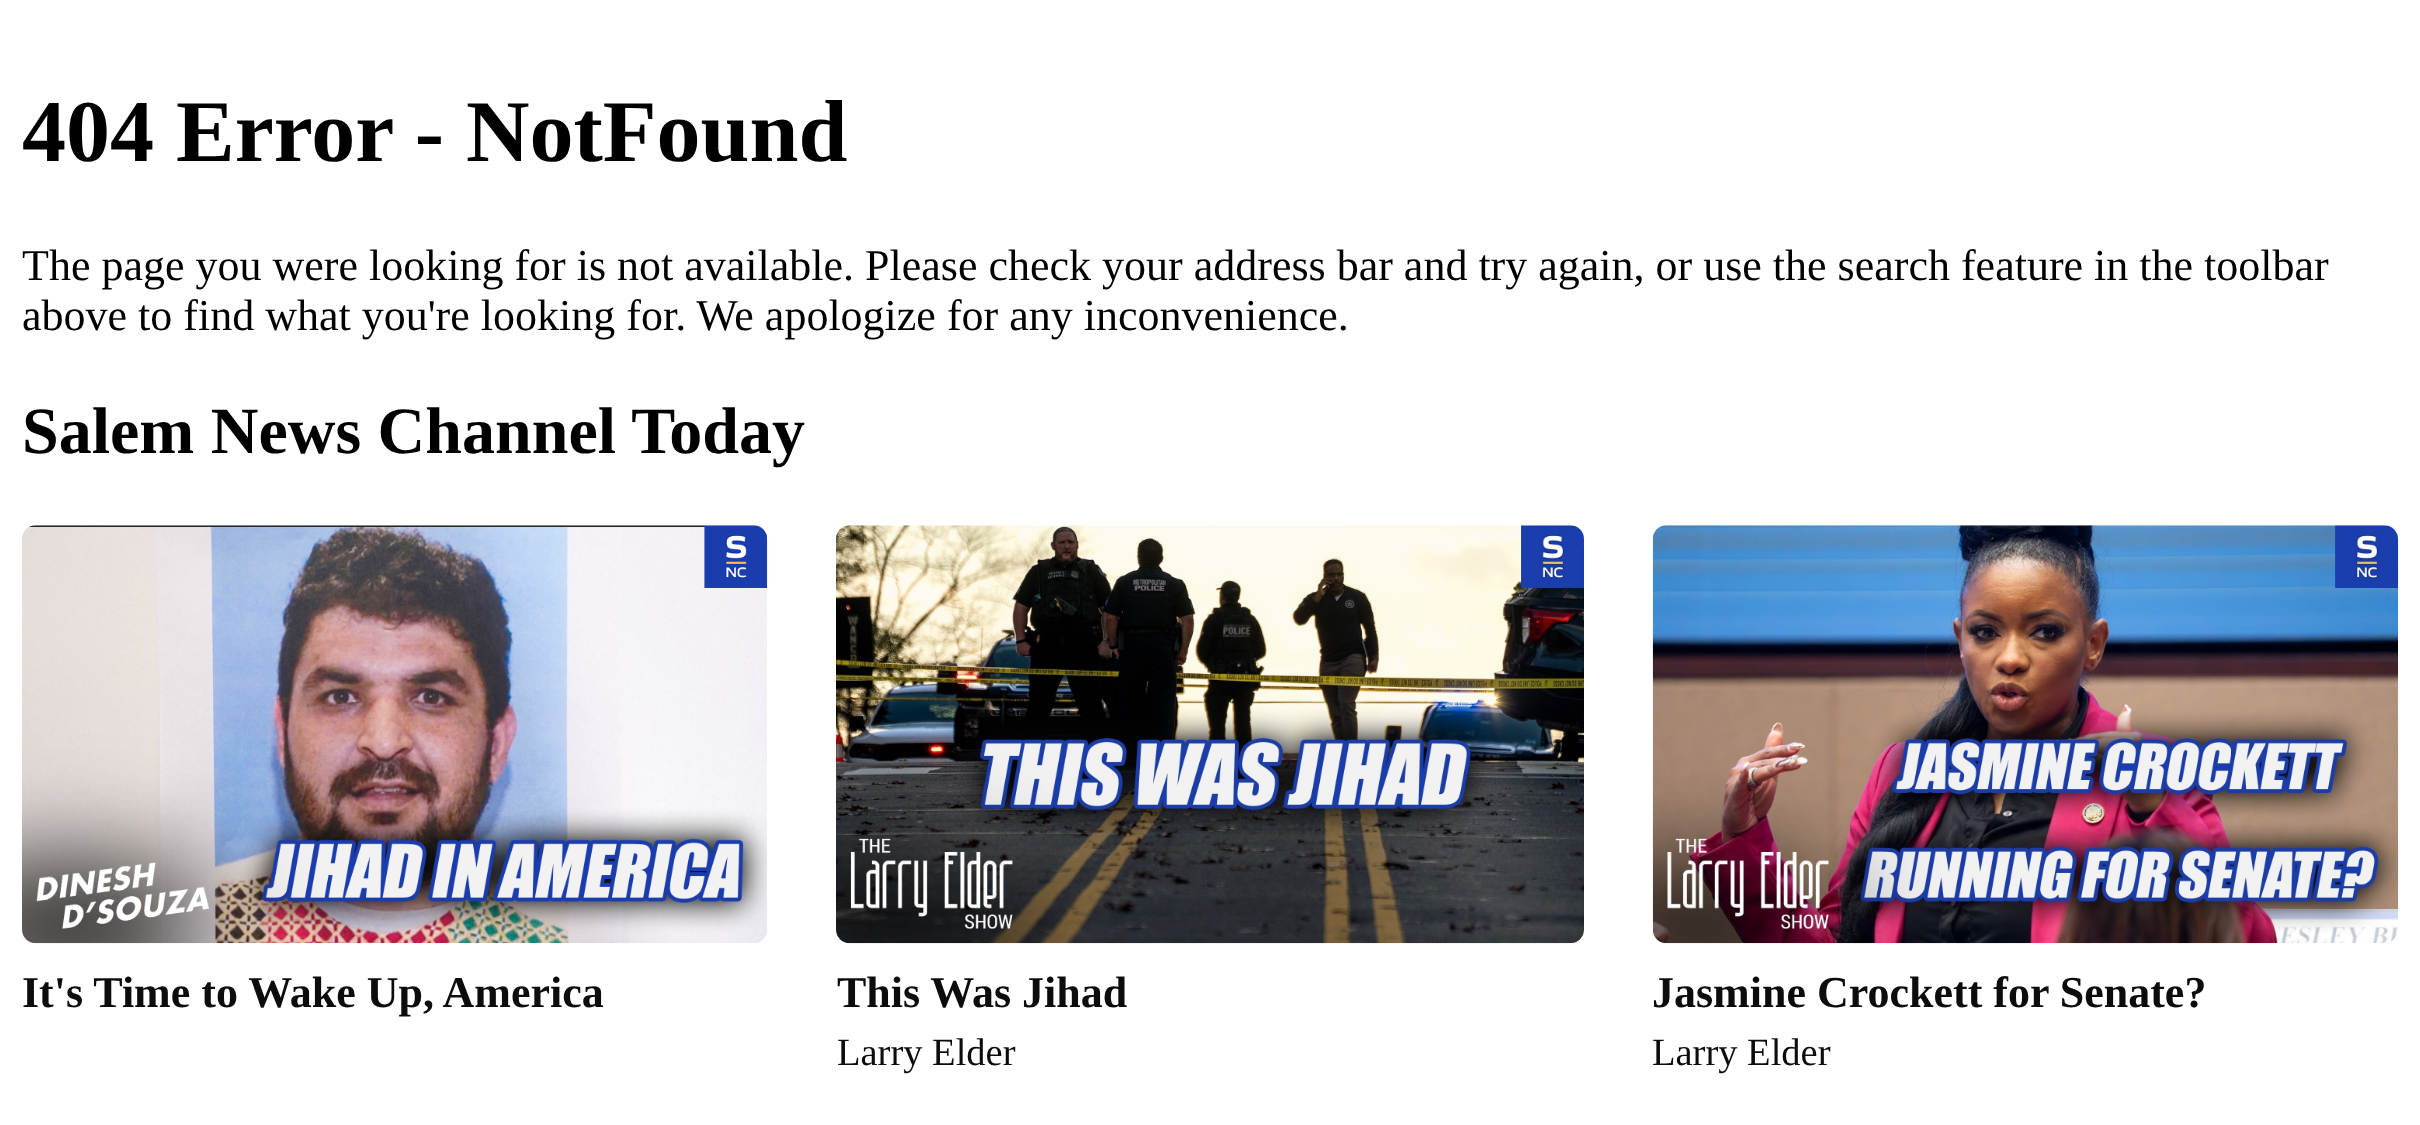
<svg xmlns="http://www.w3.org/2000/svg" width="2420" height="1125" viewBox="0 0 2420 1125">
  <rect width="100%" height="100%" fill="#ffffff"/>
  <text x="22" y="161" font-family="Liberation Serif" font-size="88" font-weight="bold" fill="#000000">404 Error - NotFound</text>
  <text x="22" y="280" font-family="Liberation Serif" font-size="44" fill="#000000">The page you were looking for is not available. Please check your address bar and try again, or use the search feature in the toolbar</text>
  <text x="22" y="330" font-family="Liberation Serif" font-size="44" fill="#000000">above to find what you're looking for. We apologize for any inconvenience.</text>
  <text x="22" y="453" font-family="Liberation Serif" font-size="66" font-weight="bold" fill="#000000">Salem News Channel Today</text>
  <image x="22" y="525" width="746" height="419" href="img1.png"/>
  <text x="22" y="1007" font-family="Liberation Serif" font-size="44" font-weight="bold" fill="#0c0c0c">It's Time to Wake Up, America</text>
  <image x="836" y="525" width="748" height="419" href="img2.png"/>
  <text x="837" y="1007" font-family="Liberation Serif" font-size="44" font-weight="bold" fill="#0c0c0c">This Was Jihad</text>
  <text x="837" y="1065" font-family="Liberation Serif" font-size="38.5" fill="#0c0c0c">Larry Elder</text>
  <image x="1652" y="525" width="746" height="419" href="img3.png"/>
  <text x="1652" y="1007" font-family="Liberation Serif" font-size="44" font-weight="bold" fill="#0c0c0c">Jasmine Crockett for Senate?</text>
  <text x="1652" y="1065" font-family="Liberation Serif" font-size="38.5" fill="#0c0c0c">Larry Elder</text>
</svg>
